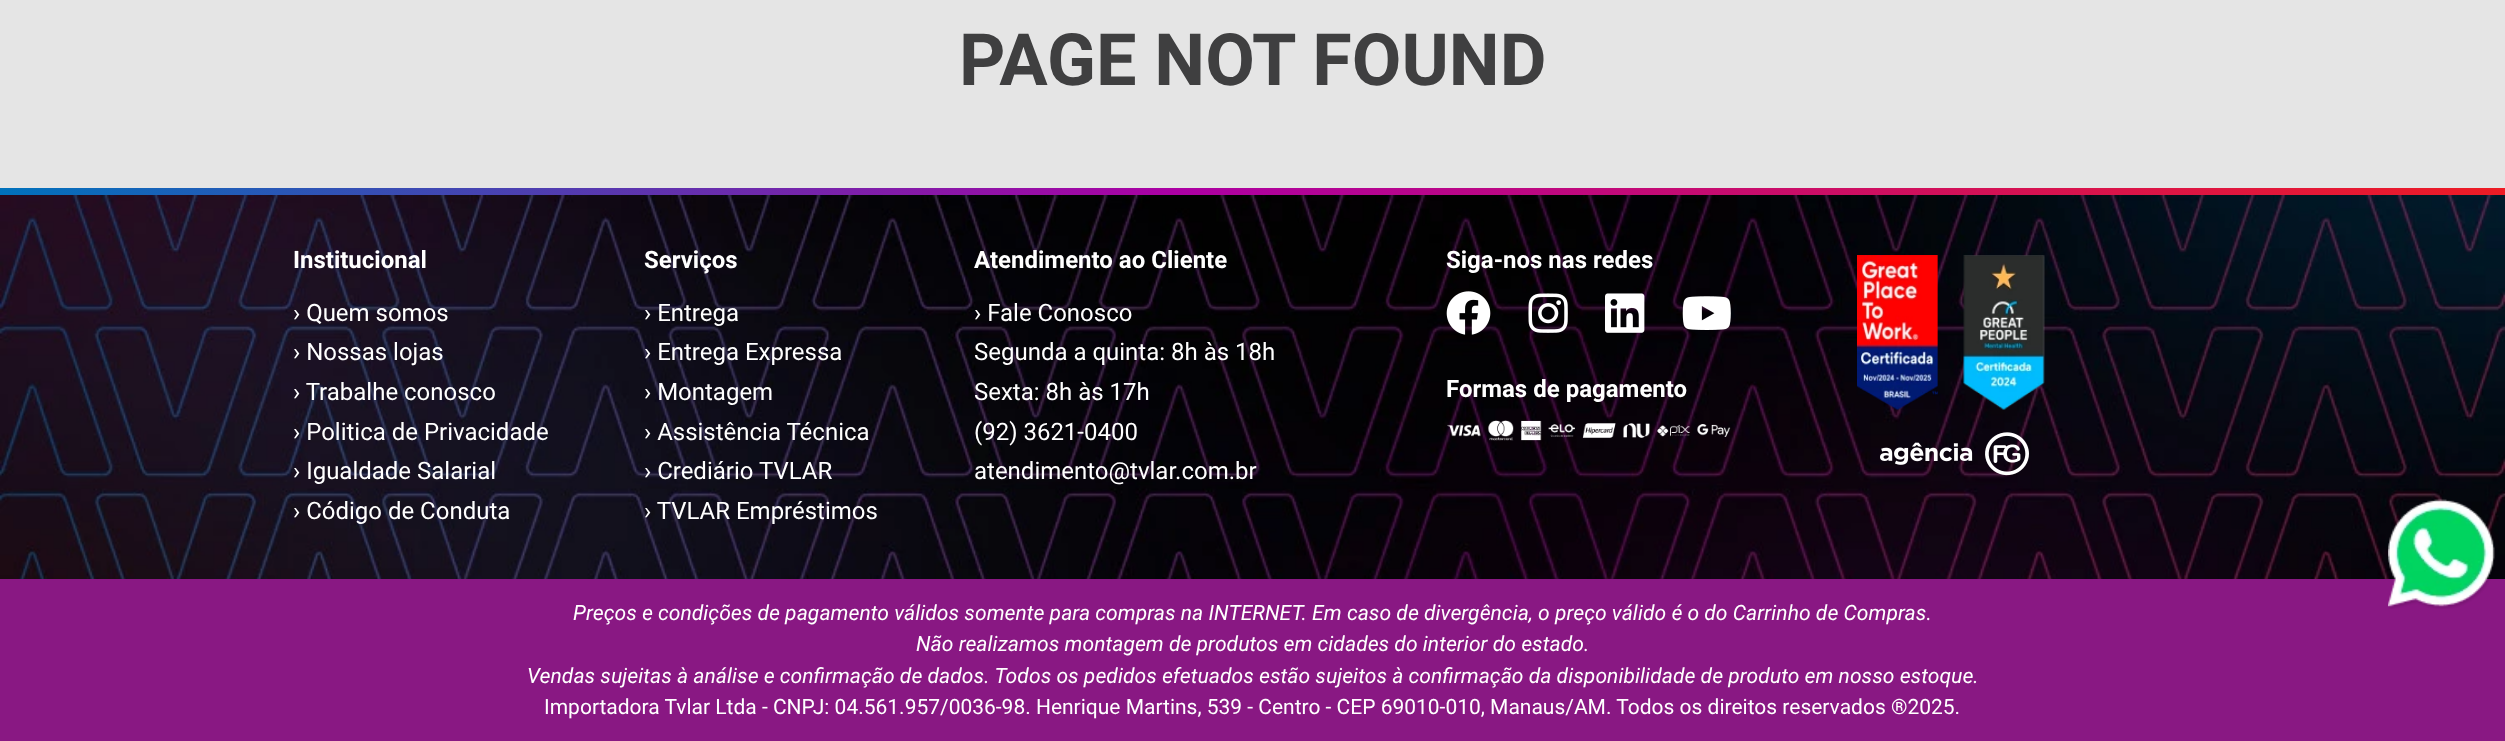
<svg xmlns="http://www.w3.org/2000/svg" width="2505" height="741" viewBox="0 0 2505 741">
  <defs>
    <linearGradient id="g1" gradientUnits="userSpaceOnUse" x1="0" y1="191" x2="2505" y2="191"><stop offset="0" stop-color="#0072bc"/><stop offset="0.47" stop-color="#ac00a3"/><stop offset="1" stop-color="#ed1c24"/></linearGradient>
  </defs>
  <rect width="100%" height="100%" fill="#e5e5e5"/>
  <text x="959" y="85" font-family="Roboto" font-size="72" font-weight="bold" fill="#3f3f40">PAGE NOT FOUND</text>
  <rect x="0" y="188" width="2505" height="7" fill="url(#g1)"/>
  <image x="0" y="195" width="2505" height="384" href="img1.png"/>
  <text x="293" y="268" font-family="Roboto" font-size="24" font-weight="bold" fill="#ffffff">Institucional</text>
  <text x="293" y="321" font-family="Roboto" font-size="24" fill="#ffffff">› Quem somos</text>
  <text x="293" y="360" font-family="Roboto" font-size="24" fill="#ffffff">› Nossas lojas</text>
  <text x="293" y="400" font-family="Roboto" font-size="24" fill="#ffffff">› Trabalhe conosco</text>
  <text x="293" y="440" font-family="Roboto" font-size="24" fill="#ffffff">› Politica de Privacidade</text>
  <text x="293" y="479" font-family="Roboto" font-size="24" fill="#ffffff">› Igualdade Salarial</text>
  <text x="293" y="519" font-family="Roboto" font-size="24" fill="#ffffff">› Código de Conduta</text>
  <text x="644" y="268" font-family="Roboto" font-size="24" font-weight="bold" fill="#ffffff">Serviços</text>
  <text x="644" y="321" font-family="Roboto" font-size="24" fill="#ffffff">› Entrega</text>
  <text x="644" y="360" font-family="Roboto" font-size="24" fill="#ffffff">› Entrega Expressa</text>
  <text x="644" y="400" font-family="Roboto" font-size="24" fill="#ffffff">› Montagem</text>
  <text x="644" y="440" font-family="Roboto" font-size="24" fill="#ffffff">› Assistência Técnica</text>
  <text x="644" y="479" font-family="Roboto" font-size="24" fill="#ffffff">› Crediário TVLAR</text>
  <text x="644" y="519" font-family="Roboto" font-size="24" fill="#ffffff">› TVLAR Empréstimos</text>
  <text x="974" y="268" font-family="Roboto" font-size="24" font-weight="bold" fill="#ffffff">Atendimento ao Cliente</text>
  <text x="974" y="321" font-family="Roboto" font-size="24" fill="#ffffff">› Fale Conosco</text>
  <text x="974" y="360" font-family="Roboto" font-size="24" fill="#ffffff">Segunda a quinta: 8h às 18h</text>
  <text x="974" y="400" font-family="Roboto" font-size="24" fill="#ffffff">Sexta: 8h às 17h</text>
  <text x="974" y="440" font-family="Roboto" font-size="24" fill="#ffffff">(92) 3621-0400</text>
  <text x="974" y="479" font-family="Roboto" font-size="24" fill="#ffffff">atendimento@tvlar.com.br</text>
  <text x="1446" y="268" font-family="Roboto" font-size="24" font-weight="bold" fill="#ffffff">Siga-nos nas redes</text>
  <image x="1446" y="291" width="45" height="44" href="img2.png"/>
  <image x="1528" y="293" width="40" height="40" href="img3.png"/>
  <image x="1605" y="293" width="40" height="40" href="img4.png"/>
  <image x="1682" y="296" width="49" height="34" href="img5.png"/>
  <text x="1446" y="397" font-family="Roboto" font-size="24" font-weight="bold" fill="#ffffff">Formas de pagamento</text>
  <image x="1447" y="420" width="284" height="21" href="img6.png"/>
  <image x="1857" y="255" width="81" height="155" href="img7.png"/>
  <image x="1963" y="255" width="82" height="155" href="img8.png"/>
  <image x="1880" y="432" width="149" height="44" href="img9.png"/>
  <rect x="0" y="579" width="2505" height="162" fill="#891883"/>
  <image x="2388" y="499" width="107" height="110" href="img10.png"/>
  <text x="573" y="620" font-family="Roboto" font-size="21" font-style="italic" fill="#ffffff">Preços e condições de pagamento válidos somente para compras na INTERNET. Em caso de divergência, o preço válido é o do Carrinho de Compras.</text>
  <text x="916" y="651" font-family="Roboto" font-size="21" font-style="italic" fill="#ffffff">Não realizamos montagem de produtos em cidades do interior do estado.</text>
  <text x="527" y="683" font-family="Roboto" font-size="21" font-style="italic" fill="#ffffff">Vendas sujeitas à análise e confirmação de dados. Todos os pedidos efetuados estão sujeitos à confirmação da disponibilidade de produto em nosso estoque.</text>
  <text x="544" y="714" font-family="Roboto" font-size="21" fill="#ffffff">Importadora Tvlar Ltda - CNPJ: 04.561.957/0036-98. Henrique Martins, 539 - Centro - CEP 69010-010, Manaus/AM. Todos os direitos reservados ®2025.</text>
</svg>
